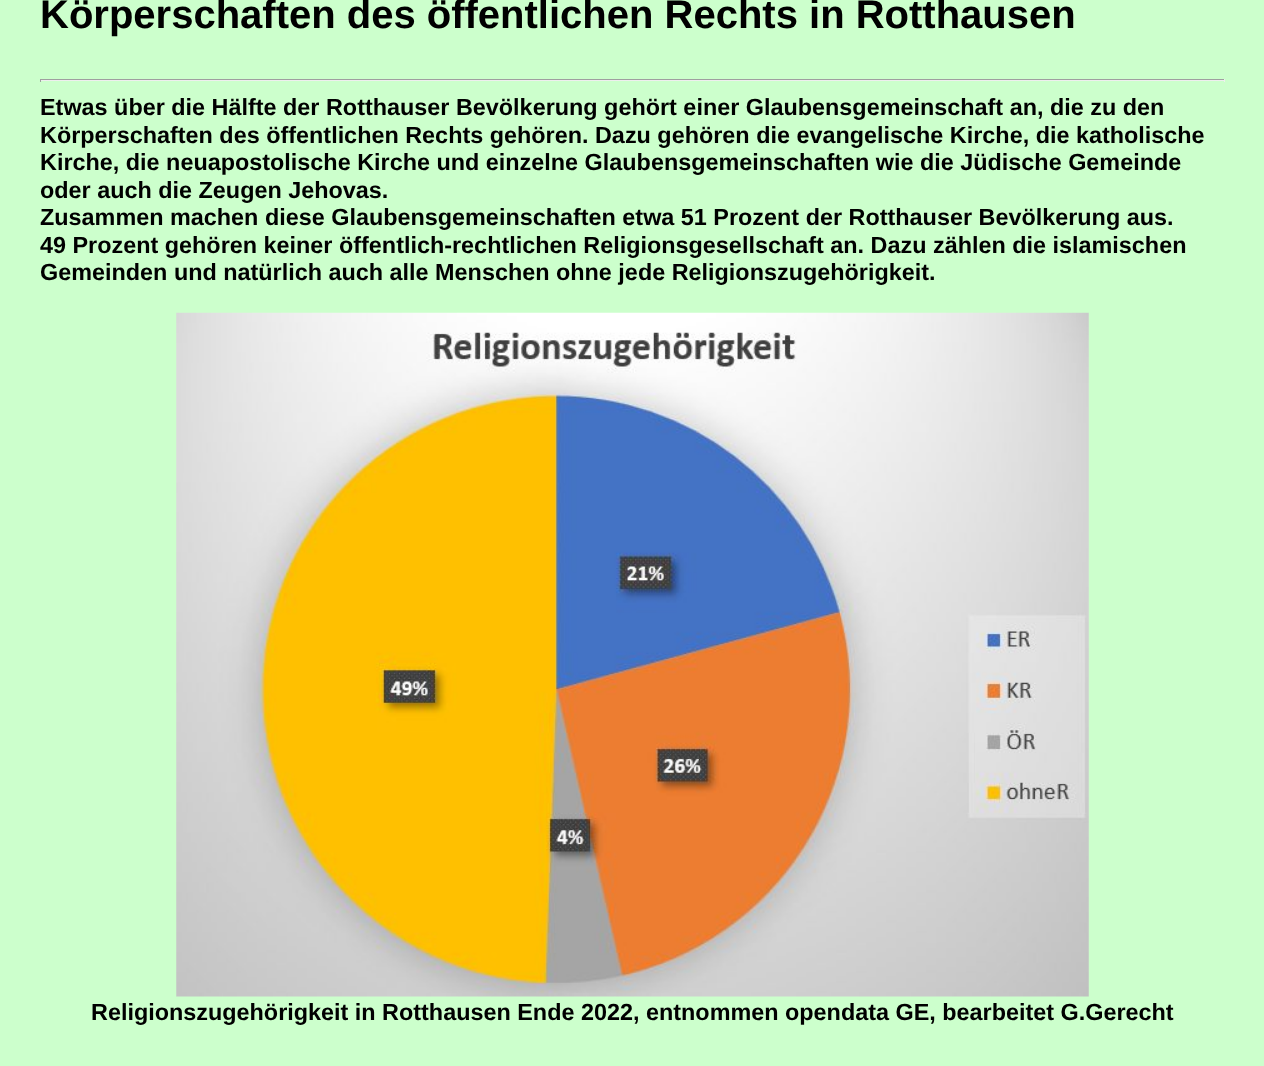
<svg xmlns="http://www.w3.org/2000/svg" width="1264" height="1066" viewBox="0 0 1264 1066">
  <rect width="100%" height="100%" fill="#ccffcc"/>
  <text x="40" y="28" font-family="Liberation Sans" font-size="40" font-weight="bold" fill="#000000">Körperschaften des öffentlichen Rechts in Rotthausen</text>
  <rect x="40" y="79" width="1185" height="1" fill="#9f9f9f"/>
  <rect x="1224" y="79" width="1" height="3" fill="#eeeeee"/>
  <rect x="40" y="80" width="1185" height="1" fill="#eeeeee"/>
  <rect x="40" y="79" width="1" height="3" fill="#9f9f9f"/>
  <text x="40" y="115" font-family="Liberation Sans" font-size="23.4" font-weight="bold" fill="#000000">Etwas über die Hälfte der Rotthauser Bevölkerung gehört einer Glaubensgemeinschaft an, die zu den</text>
  <text x="40" y="143" font-family="Liberation Sans" font-size="23.4" font-weight="bold" fill="#000000">Körperschaften des öffentlichen Rechts gehören. Dazu gehören die evangelische Kirche, die katholische</text>
  <text x="40" y="170" font-family="Liberation Sans" font-size="23.4" font-weight="bold" fill="#000000">Kirche, die neuapostolische Kirche und einzelne Glaubensgemeinschaften wie die Jüdische Gemeinde</text>
  <text x="40" y="198" font-family="Liberation Sans" font-size="23.4" font-weight="bold" fill="#000000">oder auch die Zeugen Jehovas.</text>
  <text x="40" y="225" font-family="Liberation Sans" font-size="23.4" font-weight="bold" fill="#000000">Zusammen machen diese Glaubensgemeinschaften etwa 51 Prozent der Rotthauser Bevölkerung aus.</text>
  <text x="40" y="253" font-family="Liberation Sans" font-size="23.4" font-weight="bold" fill="#000000">49 Prozent gehören keiner öffentlich-rechtlichen Religionsgesellschaft an. Dazu zählen die islamischen</text>
  <text x="40" y="280" font-family="Liberation Sans" font-size="23.4" font-weight="bold" fill="#000000">Gemeinden und natürlich auch alle Menschen ohne jede Religionszugehörigkeit.</text>
  <image x="176" y="312" width="913" height="685" href="img1.png"/>
  <text x="91" y="1020" font-family="Liberation Sans" font-size="23.4" font-weight="bold" fill="#000000">Religionszugehörigkeit in Rotthausen Ende 2022, entnommen opendata GE, bearbeitet G.Gerecht</text>
</svg>
